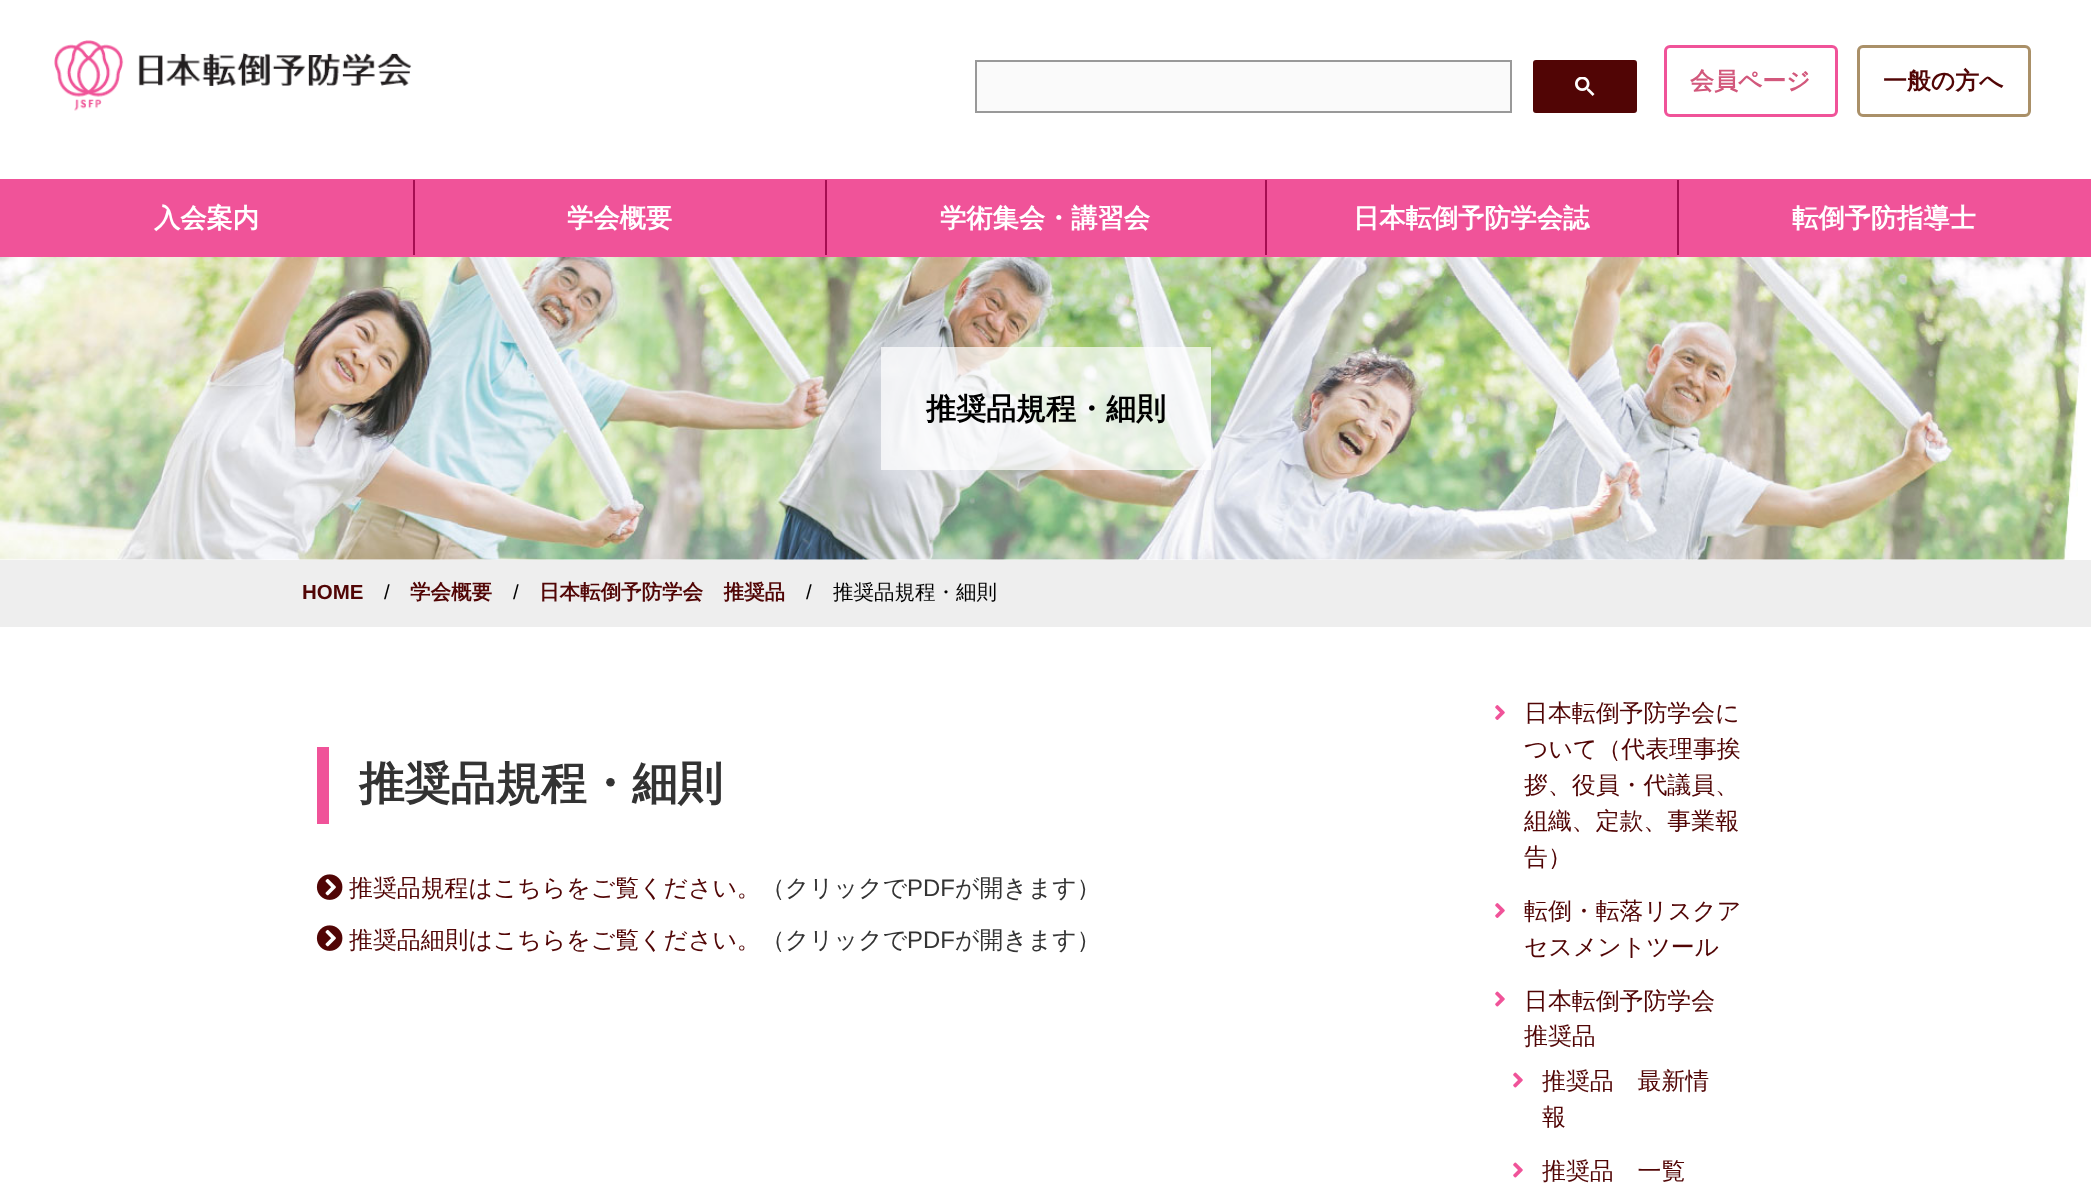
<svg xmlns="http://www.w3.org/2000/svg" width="2091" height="1196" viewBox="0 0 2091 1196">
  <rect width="100%" height="100%" fill="#ffffff"/>
  <image x="54" y="40" width="358" height="71" href="img1.png"/>
  <rect x="976" y="61" width="535" height="51" fill="#fafafa" stroke="#999999" stroke-width="2"/>
  <rect x="1534" y="61" width="102" height="51" rx="2" fill="#510505" stroke="#510505" stroke-width="2"/>
  <image x="1575" y="77" width="20" height="19" href="img2.png"/>
  <rect x="1665.5" y="46.5" width="171" height="69" rx="4.5" fill="none" stroke="#f05399" stroke-width="3"/>
  <text x="1690" y="89" font-family="WenQuanYi Zen Hei" font-size="23.9" font-weight="bold" fill="#d2587c">会員ページ</text>
  <rect x="1858.5" y="46.5" width="171" height="69" rx="4.5" fill="none" stroke="#aa9068" stroke-width="3"/>
  <text x="1883" y="89" font-family="WenQuanYi Zen Hei" font-size="23.9" font-weight="bold" fill="#510505">一般の方へ</text>
  <rect x="0" y="179" width="2091" height="78" fill="#f05399"/>
  <text x="154" y="227" font-family="WenQuanYi Zen Hei" font-size="26.25" font-weight="bold" fill="#ffffff">入会案内</text>
  <rect x="413" y="180" width="2" height="75" fill="#a60e52"/>
  <text x="567" y="227" font-family="WenQuanYi Zen Hei" font-size="26.25" font-weight="bold" fill="#ffffff">学会概要</text>
  <rect x="825" y="180" width="2" height="75" fill="#a60e52"/>
  <text x="940" y="227" font-family="WenQuanYi Zen Hei" font-size="26.25" font-weight="bold" fill="#ffffff">学術集会・講習会</text>
  <rect x="1265" y="180" width="2" height="75" fill="#a60e52"/>
  <text x="1353" y="227" font-family="WenQuanYi Zen Hei" font-size="26.25" font-weight="bold" fill="#ffffff">日本転倒予防学会誌</text>
  <rect x="1677" y="180" width="2" height="75" fill="#a60e52"/>
  <text x="1792" y="227" font-family="WenQuanYi Zen Hei" font-size="26.25" font-weight="bold" fill="#ffffff">転倒予防指導士</text>
  <image x="0" y="257" width="2087" height="303" href="img3.png"/>
  <rect x="881" y="347" width="330" height="123" fill="#ffffff" fill-opacity="0.7"/>
  <text x="926" y="419" font-family="WenQuanYi Zen Hei" font-size="30" font-weight="bold" fill="#000000">推奨品規程・細則</text>
  <rect x="0" y="560" width="2091" height="67" fill="#eeeeee"/>
  <text x="302" y="599" font-family="Liberation Sans" font-size="20.5" font-weight="bold" fill="#510505">HOME</text>
  <text x="384" y="599" font-family="Liberation Sans" font-size="20.5" fill="#000000">/</text>
  <text x="410" y="599" font-family="WenQuanYi Zen Hei" font-size="20.5" font-weight="bold" fill="#510505">学会概要</text>
  <text x="513" y="599" font-family="Liberation Sans" font-size="20.5" fill="#000000">/</text>
  <text x="539" y="599" font-family="WenQuanYi Zen Hei" font-size="20.5" font-weight="bold" fill="#510505">日本転倒予防学会　推奨品</text>
  <text x="806" y="599" font-family="Liberation Sans" font-size="20.5" fill="#000000">/</text>
  <text x="833" y="599" font-family="WenQuanYi Zen Hei" font-size="20.5" font-weight="500" fill="#000000">推奨品規程・細則</text>
  <rect x="317" y="747" width="12" height="77" fill="#f05399"/>
  <text x="359" y="799" font-family="WenQuanYi Zen Hei" font-size="45.5" font-weight="bold" fill="#333333">推奨品規程・細則</text>
  <image x="316" y="874" width="27" height="26" href="img4.png"/>
  <text x="349" y="896" font-family="WenQuanYi Zen Hei" font-size="23.9" font-weight="500" fill="#510505">推奨品規程はこちらをご覧ください。</text>
  <text x="761" y="896" font-family="WenQuanYi Zen Hei" font-size="23.9" font-weight="500" fill="#333333">（クリックで</text>
  <text x="907" y="896" font-family="Liberation Sans" font-size="23.9" fill="#333333">PDF</text>
  <text x="955" y="896" font-family="WenQuanYi Zen Hei" font-size="23.9" font-weight="500" fill="#333333">が開きます）</text>
  <image x="316" y="925" width="27" height="26" href="img4.png"/>
  <text x="349" y="948" font-family="WenQuanYi Zen Hei" font-size="23.9" font-weight="500" fill="#510505">推奨品細則はこちらをご覧ください。</text>
  <text x="761" y="948" font-family="WenQuanYi Zen Hei" font-size="23.9" font-weight="500" fill="#333333">（クリックで</text>
  <text x="907" y="948" font-family="Liberation Sans" font-size="23.9" fill="#333333">PDF</text>
  <text x="955" y="948" font-family="WenQuanYi Zen Hei" font-size="23.9" font-weight="500" fill="#333333">が開きます）</text>
  <image x="1495" y="705" width="10" height="15" href="img5.png"/>
  <text x="1524" y="721" font-family="WenQuanYi Zen Hei" font-size="23.9" font-weight="500" fill="#510505">日本転倒予防学会に</text>
  <text x="1524" y="757" font-family="WenQuanYi Zen Hei" font-size="23.9" font-weight="500" fill="#510505">ついて（代表理事挨</text>
  <text x="1524" y="793" font-family="WenQuanYi Zen Hei" font-size="23.9" font-weight="500" fill="#510505">拶、役員・代議員、</text>
  <text x="1524" y="829" font-family="WenQuanYi Zen Hei" font-size="23.9" font-weight="500" fill="#510505">組織、定款、事業報</text>
  <text x="1524" y="865" font-family="WenQuanYi Zen Hei" font-size="23.9" font-weight="500" fill="#510505">告）</text>
  <image x="1495" y="903" width="10" height="15" href="img5.png"/>
  <text x="1524" y="919" font-family="WenQuanYi Zen Hei" font-size="23.9" font-weight="500" fill="#510505">転倒・転落リスクア</text>
  <text x="1524" y="955" font-family="WenQuanYi Zen Hei" font-size="23.9" font-weight="500" fill="#510505">セスメントツール</text>
  <image x="1495" y="991" width="10" height="16" href="img6.png"/>
  <text x="1524" y="1009" font-family="WenQuanYi Zen Hei" font-size="23.9" font-weight="500" fill="#510505">日本転倒予防学会</text>
  <text x="1524" y="1044" font-family="WenQuanYi Zen Hei" font-size="23.9" font-weight="500" fill="#510505">推奨品</text>
  <image x="1513" y="1072" width="10" height="16" href="img6.png"/>
  <text x="1542" y="1089" font-family="WenQuanYi Zen Hei" font-size="23.9" font-weight="500" fill="#510505">推奨品　最新情</text>
  <text x="1542" y="1125" font-family="WenQuanYi Zen Hei" font-size="23.9" font-weight="500" fill="#510505">報</text>
  <image x="1513" y="1162" width="10" height="16" href="img6.png"/>
  <text x="1542" y="1179" font-family="WenQuanYi Zen Hei" font-size="23.9" font-weight="500" fill="#510505">推奨品　一覧</text>
</svg>
